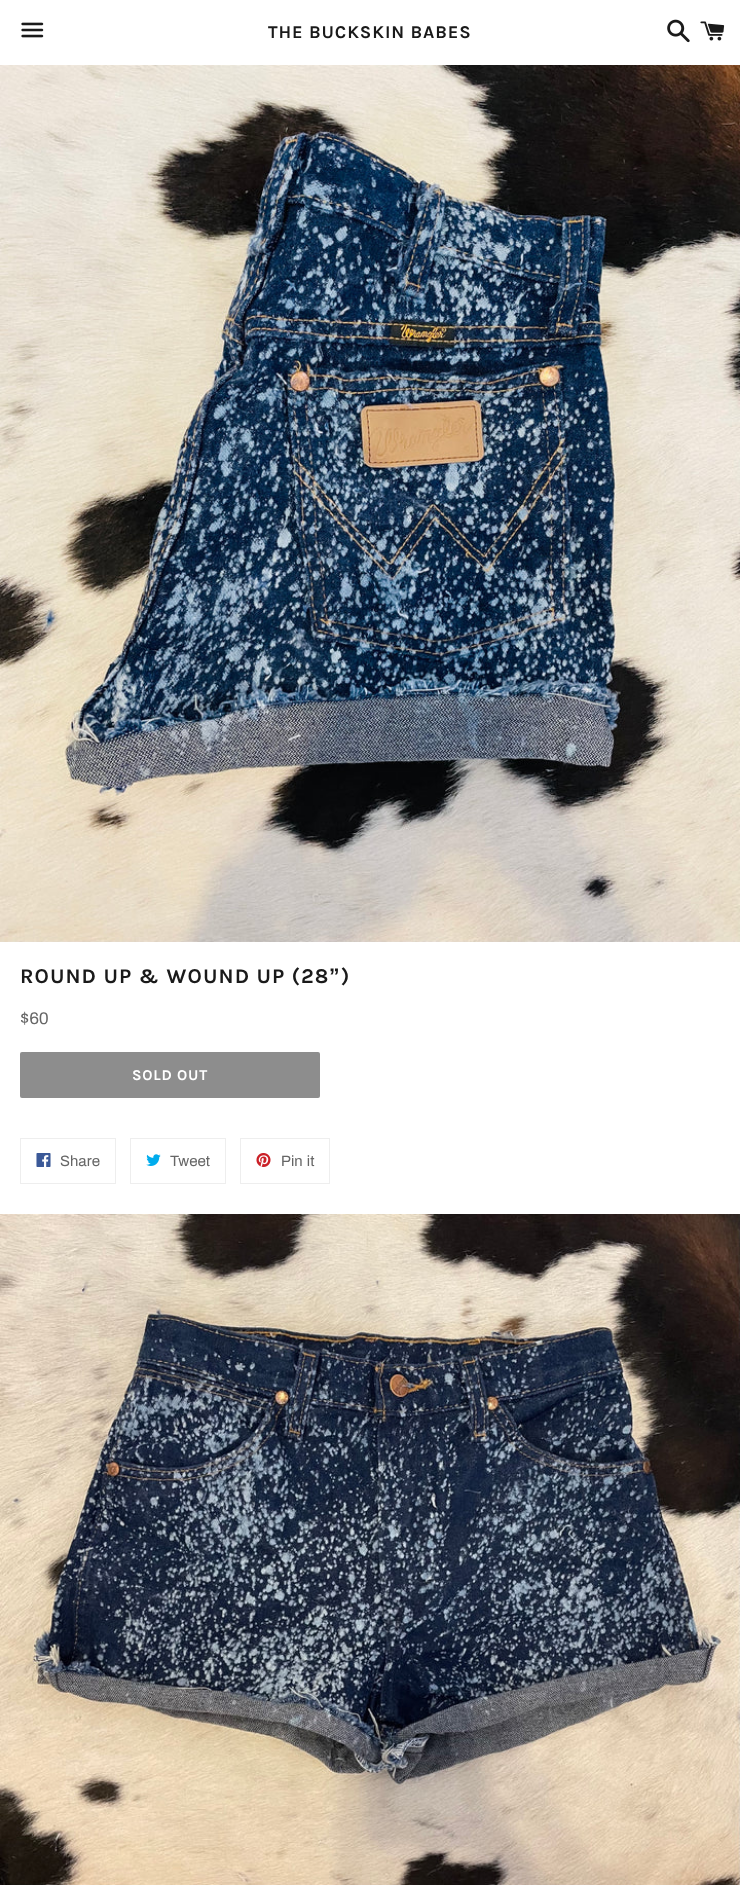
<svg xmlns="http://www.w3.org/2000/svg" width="740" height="1904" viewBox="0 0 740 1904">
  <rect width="100%" height="100%" fill="#ffffff"/>
  <image x="21" y="22" width="23" height="16" href="img1.png"/>
  <text x="268" y="38" font-family="Karla" font-size="18" font-weight="bold" letter-spacing="0.9" fill="#1a1a1a">THE BUCKSKIN BABES</text>
  <image x="667" y="19" width="23" height="24" href="img2.png"/>
  <image x="700" y="21" width="25" height="20" href="img3.png"/>
  <image x="0" y="65" width="740" height="877" href="img4.png"/>
  <text x="20" y="983" font-family="Karla" font-size="21" font-weight="bold" letter-spacing="1.05" fill="#1a1a1a">ROUND UP &amp; WOUND UP (28</text>
  <text x="329" y="983" font-family="Liberation Sans" font-size="21" font-weight="bold" letter-spacing="1.05" fill="#1a1a1a">”</text>
  <text x="341" y="983" font-family="Karla" font-size="21" font-weight="bold" letter-spacing="1.05" fill="#1a1a1a">)</text>
  <text x="20" y="1024" font-family="Archivo" font-size="17" fill="#666666">$60</text>
  <rect x="20" y="1052" width="300" height="46" rx="2" fill="#8d8d8d"/>
  <text x="132" y="1080" font-family="Karla" font-size="15" font-weight="bold" letter-spacing="0.75" fill="#ffffff">SOLD OUT</text>
  <rect x="20.5" y="1138.5" width="95" height="45" fill="none" stroke="#eeeeee"/>
  <image x="36" y="1153" width="15" height="14" href="img5.png"/>
  <text x="60" y="1166" font-family="Archivo" font-size="15" fill="#666666">Share</text>
  <rect x="130.5" y="1138.5" width="95" height="45" fill="none" stroke="#eeeeee"/>
  <image x="146" y="1154" width="15" height="12" href="img6.png"/>
  <text x="170" y="1166" font-family="Archivo" font-size="15" fill="#666666">Tweet</text>
  <rect x="240.5" y="1138.5" width="89" height="45" fill="none" stroke="#eeeeee"/>
  <image x="256" y="1153" width="15" height="14" href="img7.png"/>
  <text x="281" y="1166" font-family="Archivo" font-size="15" fill="#666666">Pin it</text>
  <image x="0" y="1214" width="740" height="671" href="img8.png"/>
</svg>
